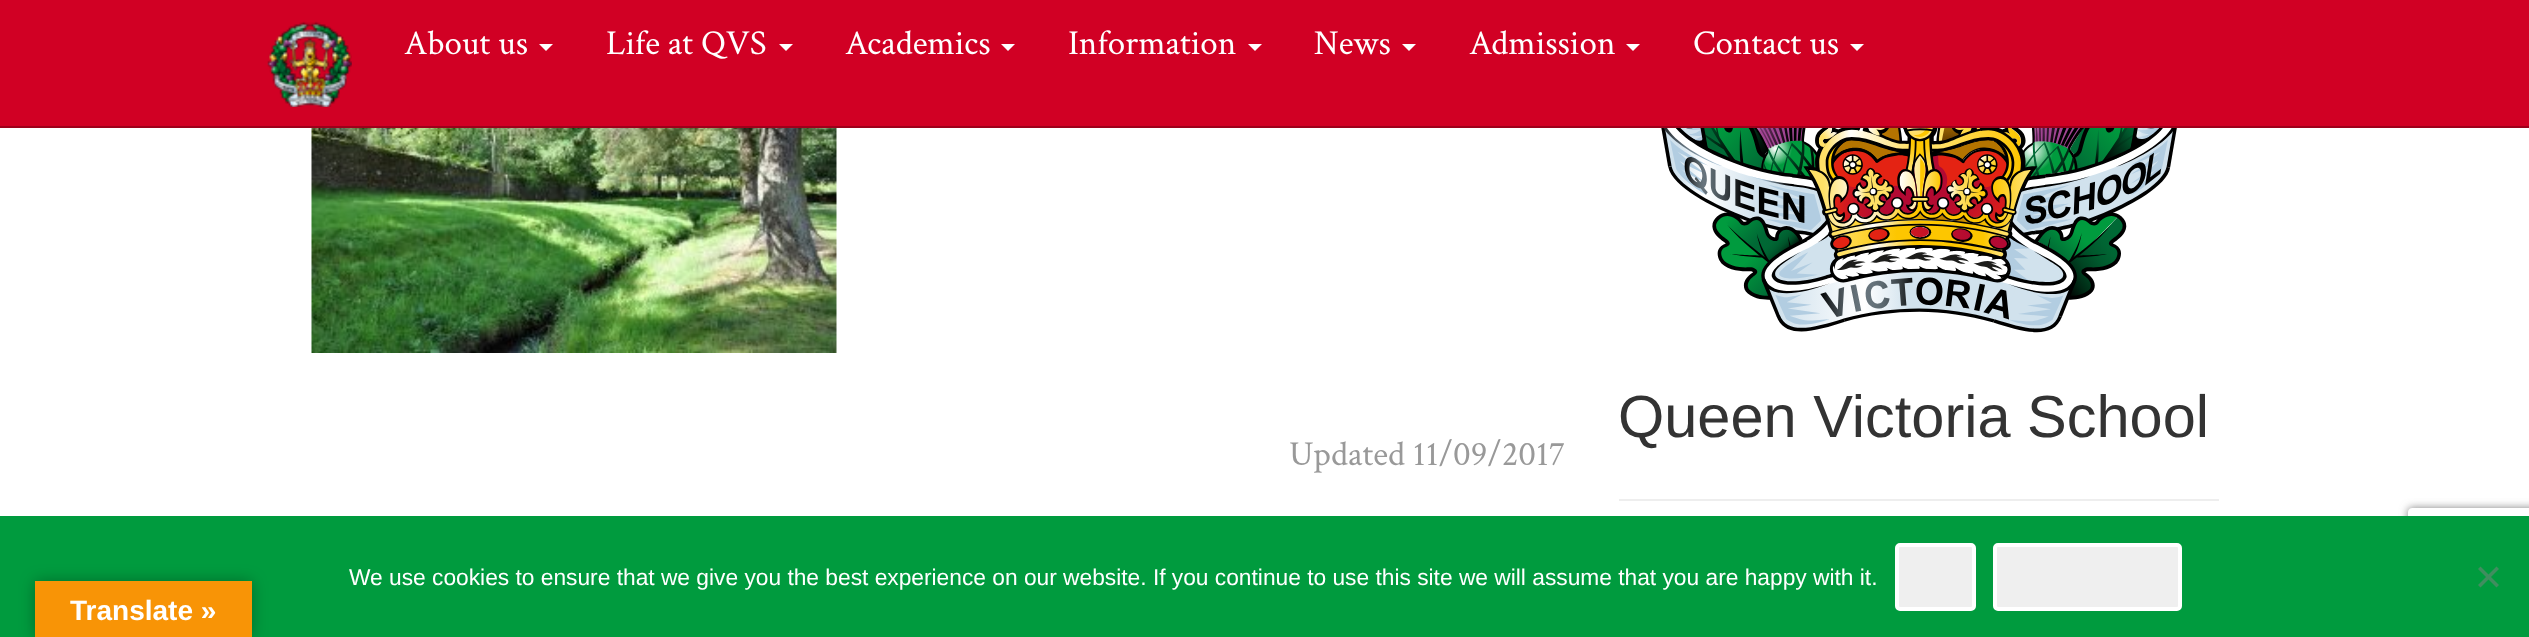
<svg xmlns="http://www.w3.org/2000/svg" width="2529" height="637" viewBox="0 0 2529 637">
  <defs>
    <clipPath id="clip1"><path d="M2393 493H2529V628H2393ZM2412 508H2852C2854 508 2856 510 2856 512V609C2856 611 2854 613 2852 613H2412C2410 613 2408 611 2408 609V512C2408 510 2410 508 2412 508Z" clip-rule="evenodd"/></clipPath>
    <filter id="blur1" x="-50%" y="-200%" width="200%" height="500%"><feGaussianBlur stdDeviation="4.5"/></filter>
    <filter id="blur2" x="-50%" y="-200%" width="200%" height="500%"><feGaussianBlur stdDeviation="8"/></filter>
  </defs>
  <rect width="100%" height="100%" fill="#ffffff"/>
  <rect x="0" y="0" width="2529" height="126" fill="#d10024"/>
  <rect x="0" y="126" width="2529" height="2" fill="#9e001b"/>
  <image x="267" y="21" width="85" height="86" href="img1.png"/>
  <text x="404" y="54" font-family="Crimson Text" font-size="35" fill="#ffffff">About us</text>
  <path d="M539 44H553L546 51Z" fill="#ffffff"/>
  <text x="606" y="54" font-family="Crimson Text" font-size="35" fill="#ffffff">Life at QVS</text>
  <path d="M779 44H793L786 51Z" fill="#ffffff"/>
  <text x="845" y="54" font-family="Crimson Text" font-size="35" fill="#ffffff">Academics</text>
  <path d="M1001 44H1015L1008 51Z" fill="#ffffff"/>
  <text x="1068" y="54" font-family="Crimson Text" font-size="35" fill="#ffffff">Information</text>
  <path d="M1248 44H1262L1255 51Z" fill="#ffffff"/>
  <text x="1314" y="54" font-family="Crimson Text" font-size="35" fill="#ffffff">News</text>
  <path d="M1402 44H1416L1409 51Z" fill="#ffffff"/>
  <text x="1469" y="54" font-family="Crimson Text" font-size="35" fill="#ffffff">Admission</text>
  <path d="M1626 44H1640L1633 51Z" fill="#ffffff"/>
  <text x="1693" y="54" font-family="Crimson Text" font-size="35" fill="#ffffff">Contact us</text>
  <path d="M1850 44H1864L1857 51Z" fill="#ffffff"/>
  <image x="1661" y="128" width="516" height="205" href="img2.png"/>
  <text x="1618" y="437" font-family="Liberation Sans" font-size="59.5" fill="#333333">Queen Victoria School</text>
  <rect x="1619" y="499" width="600" height="2" fill="#eeeeee"/>
  <image x="311" y="128" width="526" height="225" href="img3.png"/>
  <text x="1289" y="465" font-family="Crimson Text" font-size="35" fill="#999999">Updated 11/09/2017</text>
  <g clip-path="url(#clip1)">
    <rect x="2408" y="508" width="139" height="105" rx="4" fill="#808080" filter="url(#blur1)"/>
  </g>
  <rect x="0" y="516" width="2529" height="121" fill="#009b3e"/>
  <text x="349" y="585" font-family="Liberation Sans" font-size="22.75" fill="#ffffff">We use cookies to ensure that we give you the best experience on our website. If you continue to use this site we will assume that you are happy with it.</text>
  <rect x="1897" y="545" width="77" height="64" rx="3" fill="#efefef" stroke="#ffffff" stroke-width="4"/>
  <rect x="1995" y="545" width="185" height="64" rx="3" fill="#efefef" stroke="#ffffff" stroke-width="4"/>
  <path d="M2496.5 566.5L2499 569L2480.5 587.5L2478 585Z" fill="#408e5f"/>
  <path d="M2478 569L2480.5 566.5L2499 585L2496.5 587.5Z" fill="#408e5f"/>
  <rect x="35" y="581" width="217" height="56" fill="#000000" fill-opacity="0.3" filter="url(#blur2)"/>
  <rect x="35" y="581" width="217" height="56" fill="#f89406"/>
  <text x="70" y="620" font-family="Liberation Sans" font-size="28" font-weight="bold" fill="#ffffff">Translate »</text>
</svg>
